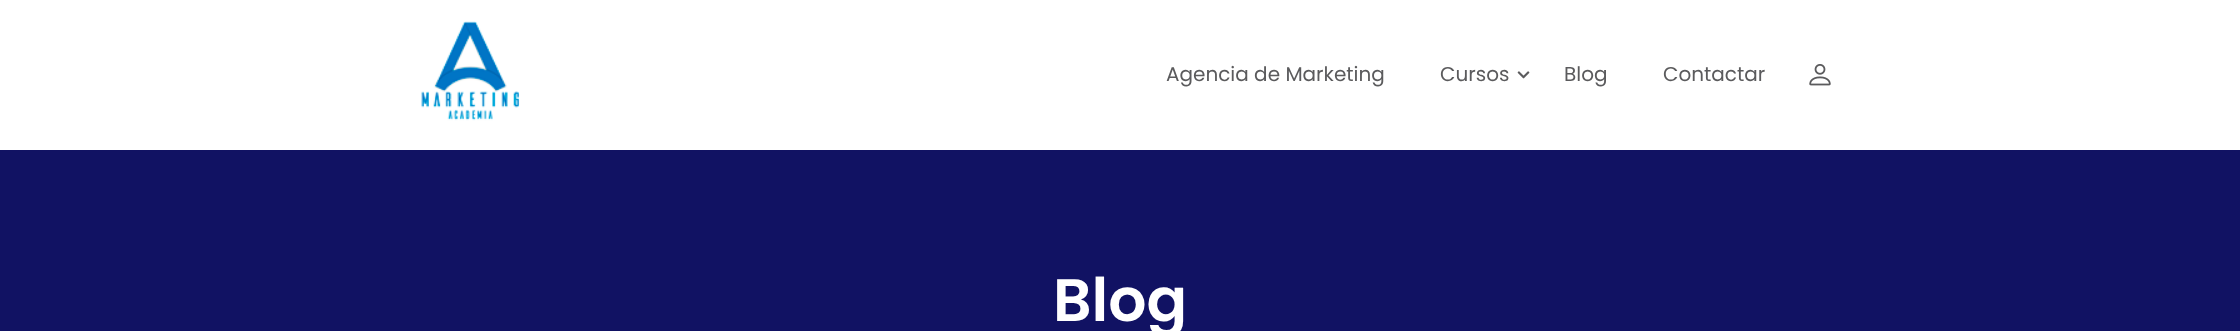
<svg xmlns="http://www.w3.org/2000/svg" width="2240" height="331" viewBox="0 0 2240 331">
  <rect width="100%" height="100%" fill="#111263"/>
  <rect x="0" y="0" width="2240" height="150" fill="#ffffff"/>
  <image x="421" y="21" width="99" height="100" href="img1.png"/>
  <text x="1166" y="81" font-family="Poppins" font-size="20" fill="#5b5b5d">Agencia de Marketing</text>
  <text x="1440" y="81" font-family="Poppins" font-size="20" fill="#5b5b5d">Cursos</text>
  <image x="1517" y="71" width="13" height="8" href="img2.png"/>
  <text x="1564" y="81" font-family="Poppins" font-size="20" fill="#5b5b5d">Blog</text>
  <text x="1663" y="81" font-family="Poppins" font-size="20" fill="#5b5b5d">Contactar</text>
  <image x="1809" y="64" width="22" height="22" href="img3.png"/>
  <text x="1053" y="321" font-family="Poppins" font-size="60" font-weight="600" fill="#ffffff">Blog</text>
</svg>
